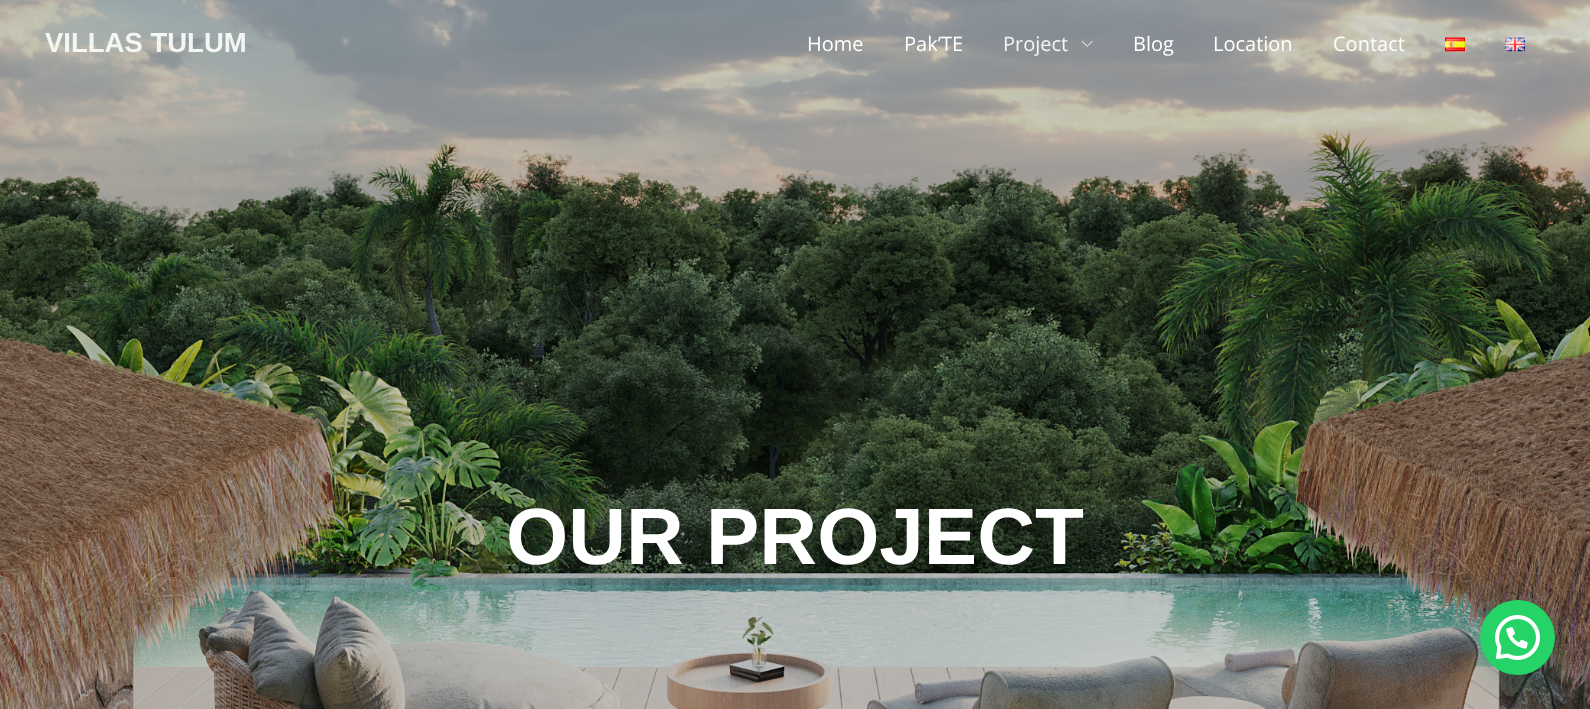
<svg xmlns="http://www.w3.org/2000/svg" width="1590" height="709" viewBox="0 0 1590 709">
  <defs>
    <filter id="blur1" x="-50%" y="-200%" width="200%" height="500%"><feGaussianBlur stdDeviation="15"/></filter>
  </defs>
  <rect width="100%" height="100%" fill="#ffffff"/>
  <image x="0" y="0" width="1590" height="709" href="img4.png"/>
  <text x="45" y="52" font-family="Liberation Sans" font-size="27.5" font-weight="bold" fill="#f4f6f4">VILLAS TULUM</text>
  <text x="807" y="51" font-family="Open Sans" font-size="20" fill="#ffffff">Home</text>
  <text x="904" y="51" font-family="Open Sans" font-size="20" fill="#ffffff">Pak’TE</text>
  <text x="1003" y="51" font-family="Open Sans" font-size="20" fill="#f4f6f4">Project</text>
  <image x="1081" y="40" width="12" height="7" href="img1.png"/>
  <text x="1133" y="51" font-family="Open Sans" font-size="20" fill="#ffffff">Blog</text>
  <text x="1213" y="51" font-family="Open Sans" font-size="20" fill="#ffffff">Location</text>
  <text x="1333" y="51" font-family="Open Sans" font-size="20" fill="#ffffff">Contact</text>
  <image x="1445" y="37" width="20" height="15" href="img2.png"/>
  <image x="1505" y="37" width="20" height="15" href="img3.png"/>
  <text x="506" y="564" font-family="Liberation Sans" font-size="80" font-weight="bold" fill="#ffffff">OUR PROJECT</text>
  <rect x="1481" y="608" width="75" height="75" rx="37.5" fill="#075e54" fill-opacity="0.24" filter="url(#blur1)"/>
  <circle cx="1517.5" cy="637.5" r="37.5" fill="#25d366"/>
  <image x="1495" y="615" width="45" height="45" href="img5.png"/>
</svg>
